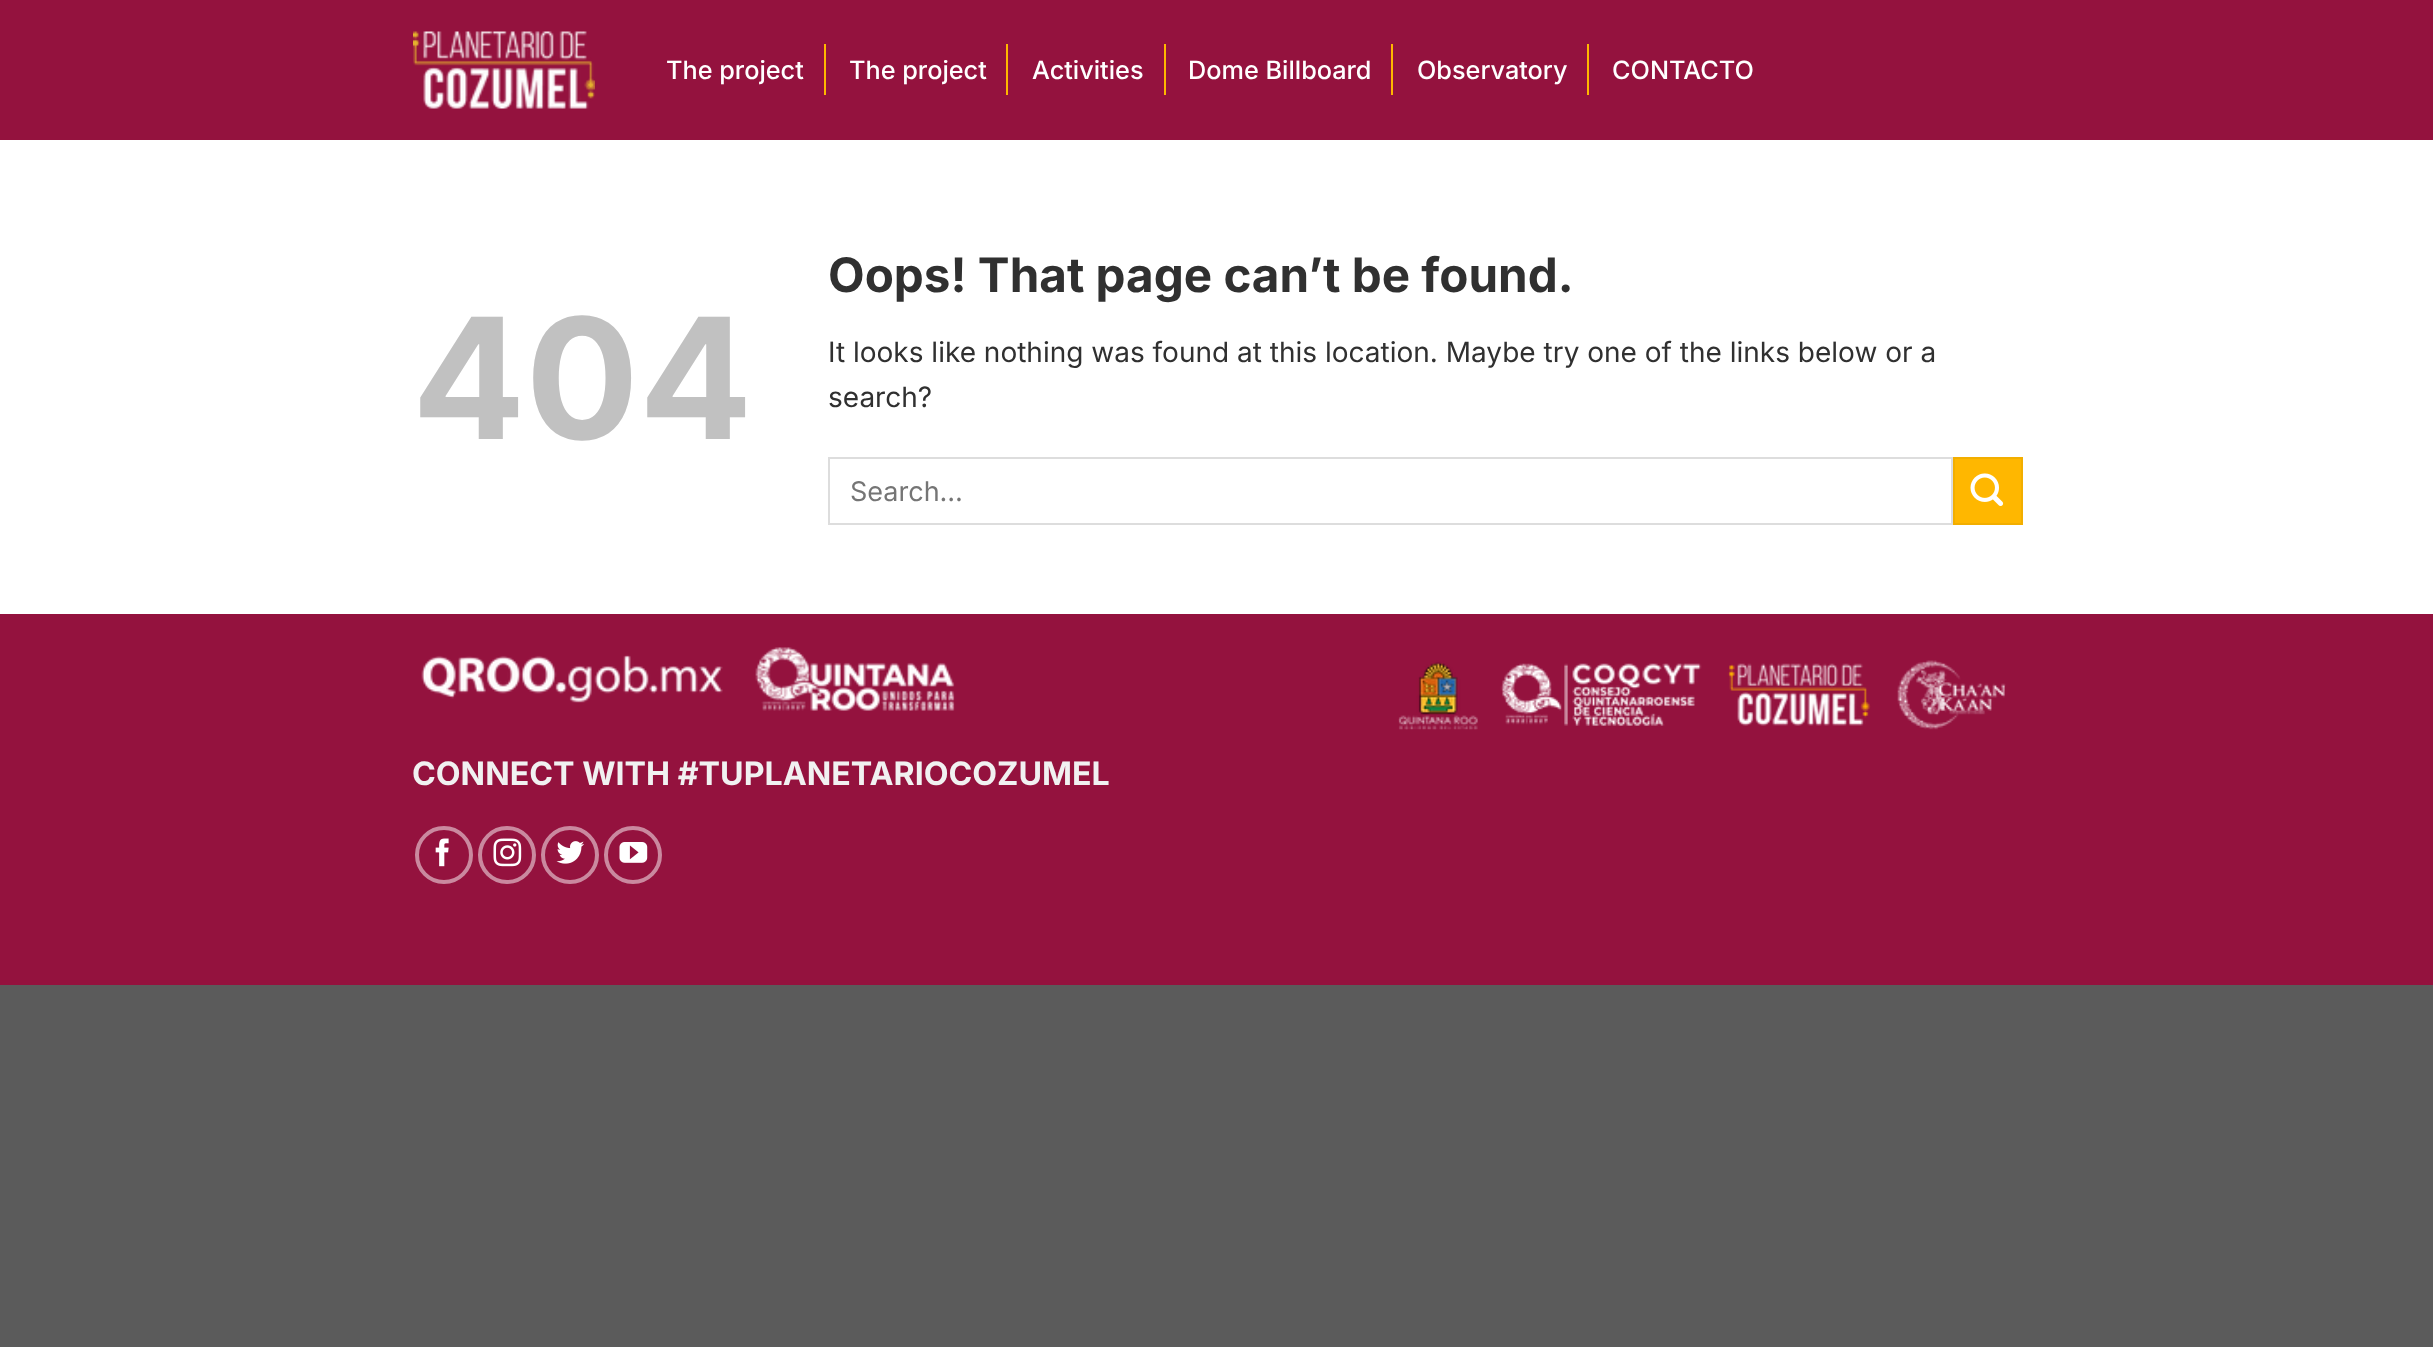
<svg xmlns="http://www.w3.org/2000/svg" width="2433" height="1347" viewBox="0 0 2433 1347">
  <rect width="100%" height="100%" fill="#5b5b5b"/>
  <rect x="0" y="140" width="2433" height="474" fill="#ffffff"/>
  <rect x="0" y="0" width="2433" height="140" fill="#94123e"/>
  <image x="413" y="31" width="182" height="78" href="img1.png"/>
  <text x="666" y="79" font-family="Inter" font-size="25.25" font-weight="500" fill="#ffffff">The project</text>
  <rect x="824" y="44" width="2" height="51" fill="#ffb700"/>
  <text x="849" y="79" font-family="Inter" font-size="25.25" font-weight="500" fill="#ffffff">The project</text>
  <rect x="1006" y="44" width="2" height="51" fill="#ffb700"/>
  <text x="1032" y="79" font-family="Inter" font-size="25.25" font-weight="500" fill="#ffffff">Activities</text>
  <rect x="1164" y="44" width="2" height="51" fill="#ffb700"/>
  <text x="1188" y="79" font-family="Inter" font-size="25.25" font-weight="500" fill="#ffffff">Dome Billboard</text>
  <rect x="1391" y="44" width="2" height="51" fill="#ffb700"/>
  <text x="1417" y="79" font-family="Inter" font-size="25.25" font-weight="500" fill="#ffffff">Observatory</text>
  <rect x="1587" y="44" width="2" height="51" fill="#ffb700"/>
  <text x="1612" y="79" font-family="Inter" font-size="25.25" font-weight="500" fill="#ffffff">CONTACTO</text>
  <text x="412" y="439" font-family="Inter" font-size="168" font-weight="bold" fill="#c1c1c1">404</text>
  <text x="828" y="292" font-family="Inter" font-size="47.6" font-weight="bold" fill="#303030">Oops! That page can’t be found.</text>
  <text x="828" y="362" font-family="Inter" font-size="28" fill="#303030">It looks like nothing was found at this location. Maybe try one of the links below or a</text>
  <text x="828" y="407" font-family="Inter" font-size="28" fill="#303030">search?</text>
  <rect x="829" y="458" width="1123" height="66" fill="none" stroke="#dddddd" stroke-width="2"/>
  <text x="850" y="501" font-family="Inter" font-size="27" fill="#757575">Search…</text>
  <rect x="1954" y="458" width="68" height="66" fill="#ffb700" stroke="#f2ae00" stroke-width="2"/>
  <image x="1970" y="473" width="34" height="33" href="img2.png"/>
  <rect x="0" y="614" width="2433" height="371" fill="#94123e"/>
  <image x="1398" y="660" width="608" height="70" href="img3.png"/>
  <image x="421" y="647" width="534" height="64" href="img4.png"/>
  <text x="412" y="785" font-family="Inter" font-size="32.2" font-weight="bold" fill="#f1f1f1">CONNECT WITH #TUPLANETARIOCOZUMEL</text>
  <circle cx="444" cy="855" r="27" fill="none" stroke="#ca899f" stroke-width="4"/>
  <image x="435" y="838" width="14" height="29" href="img5.png"/>
  <circle cx="507" cy="855" r="27" fill="none" stroke="#ca899f" stroke-width="4"/>
  <image x="493" y="838" width="29" height="29" href="img6.png"/>
  <circle cx="570" cy="855" r="27" fill="none" stroke="#ca899f" stroke-width="4"/>
  <image x="556" y="841" width="28" height="23" href="img7.png"/>
  <circle cx="633" cy="855" r="27" fill="none" stroke="#ca899f" stroke-width="4"/>
  <image x="619" y="842" width="29" height="21" href="img8.png"/>
</svg>
